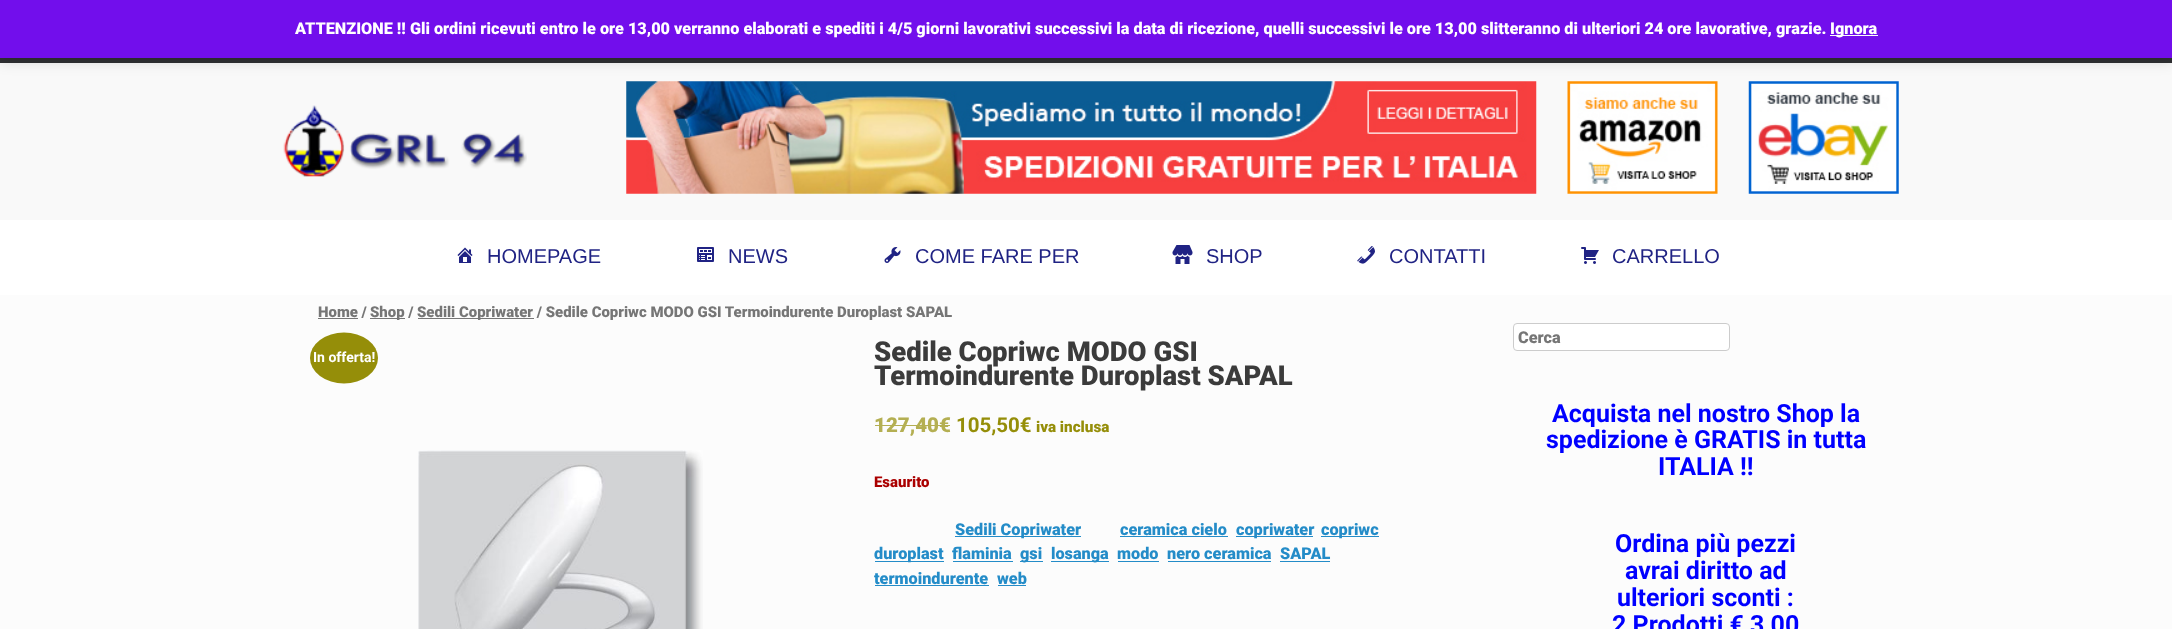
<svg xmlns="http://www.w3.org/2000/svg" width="2172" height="629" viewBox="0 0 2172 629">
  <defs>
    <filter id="blur1" x="-50%" y="-200%" width="200%" height="500%"><feGaussianBlur stdDeviation="8"/></filter>
  </defs>
  <rect width="100%" height="100%" fill="#2f3033"/>
  <rect x="0" y="63" width="2172" height="157" fill="#f9f9f9"/>
  <image x="626" y="81" width="911" height="113" href="img2.png"/>
  <image x="1567" y="81" width="151" height="113" href="img3.png"/>
  <image x="1748" y="81" width="151" height="113" href="img4.png"/>
  <rect x="0" y="1" width="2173" height="58" fill="#000000" fill-opacity="0.2" filter="url(#blur1)"/>
  <rect x="0" y="0" width="2172" height="58" fill="#720eec"/>
  <text x="295" y="34" font-family="Roboto" font-size="16.25" font-weight="900" fill="#ffffff">ATTENZIONE !! Gli ordini ricevuti entro le ore 13,00 verranno elaborati e spediti i 4/5 giorni lavorativi successivi la data di ricezione, quelli successivi le ore 13,00 slitteranno di ulteriori 24 ore lavorative, grazie.</text>
  <rect x="1830" y="35" width="48" height="1" fill="#fcfbfe"/>
  <text x="1830" y="34" font-family="Roboto" font-size="16.25" font-weight="900" fill="#ffffff">Ignora</text>
  <image x="283" y="105" width="244" height="72" href="img1.png"/>
  <rect x="0" y="220" width="2172" height="75" fill="#ffffff"/>
  <image x="457" y="247" width="16" height="16" href="img5.png"/>
  <text x="487" y="263" font-family="Liberation Sans" font-size="20" fill="#202384">HOMEPAGE</text>
  <image x="697" y="247" width="17" height="15" href="img6.png"/>
  <text x="728" y="263" font-family="Liberation Sans" font-size="20" fill="#202384">NEWS</text>
  <image x="884" y="247" width="17" height="16" href="img7.png"/>
  <text x="915" y="263" font-family="Liberation Sans" font-size="20" fill="#202384">COME FARE PER</text>
  <image x="1172" y="245" width="21" height="19" href="img8.png"/>
  <text x="1206" y="263" font-family="Liberation Sans" font-size="20" fill="#202384">SHOP</text>
  <image x="1357" y="246" width="18" height="18" href="img9.png"/>
  <text x="1389" y="263" font-family="Liberation Sans" font-size="20" fill="#202384">CONTATTI</text>
  <image x="1581" y="247" width="18" height="17" href="img10.png"/>
  <text x="1612" y="263" font-family="Liberation Sans" font-size="20" fill="#202384">CARRELLO</text>
  <rect x="0" y="295" width="2172" height="334" fill="#fcfcfc"/>
  <text x="318" y="317" font-family="Roboto" font-size="14.95" font-weight="900" fill="#767676">Home /</text>
  <rect x="318" y="318" width="40" height="1" fill="#767676"/>
  <rect x="370" y="318" width="35" height="1" fill="#767676"/>
  <text x="370" y="317" font-family="Roboto" font-size="14.95" font-weight="900" fill="#767676">Shop /</text>
  <rect x="418" y="318" width="116" height="1" fill="#767676"/>
  <text x="417" y="317" font-family="Roboto" font-size="14.95" font-weight="900" fill="#767676">Sedili Copriwater / Sedile Copriwc MODO GSI Termoindurente Duroplast SAPAL</text>
  <ellipse cx="344" cy="358" rx="34" ry="25.5" fill="#958e09"/>
  <text x="313" y="362" font-family="Roboto" font-size="14" font-weight="bold" fill="#ffffff">In offerta!</text>
  <text x="874" y="361" font-family="Roboto" font-size="27.5" font-weight="900" fill="#3b3b3b">Sedile Copriwc MODO GSI</text>
  <text x="874" y="385" font-family="Roboto" font-size="27.5" font-weight="900" fill="#3b3b3b">Termoindurente Duroplast SAPAL</text>
  <text x="874" y="432" font-family="Roboto" font-size="20.5" font-weight="900" fill="#b4af52">127,40€</text>
  <rect x="875" y="425" width="75" height="1" fill="#b4af52"/>
  <text x="956" y="432" font-family="Roboto" font-size="20.5" font-weight="bold" fill="#958e09">105,50€</text>
  <text x="1036" y="432" font-family="Roboto" font-size="15.25" font-weight="900" fill="#958e09">iva inclusa</text>
  <text x="874" y="487" font-family="Roboto" font-size="14.95" font-weight="900" fill="#aa0000">Esaurito</text>
  <rect x="955" y="536" width="126" height="1" fill="#248cc8"/>
  <text x="955" y="535" font-family="Roboto" font-size="16.25" font-weight="900" fill="#248cc8">Sedili Copriwater</text>
  <text x="1120" y="535" font-family="Roboto" font-size="16.25" font-weight="900" fill="#248cc8">ceramica cielo</text>
  <rect x="1120" y="536" width="108" height="1" fill="#248cc8"/>
  <rect x="1236" y="536" width="77" height="1" fill="#248cc8"/>
  <text x="1236" y="535" font-family="Roboto" font-size="16.25" font-weight="900" fill="#248cc8">copriwater</text>
  <rect x="1321" y="536" width="58" height="1" fill="#248cc8"/>
  <text x="1321" y="535" font-family="Roboto" font-size="16.25" font-weight="900" fill="#248cc8">copriwc</text>
  <rect x="875" y="561" width="69" height="1" fill="#248cc8"/>
  <text x="874" y="559" font-family="Roboto" font-size="16.25" font-weight="900" fill="#248cc8">duroplast</text>
  <text x="952" y="559" font-family="Roboto" font-size="16.25" font-weight="900" fill="#248cc8">flaminia</text>
  <rect x="953" y="561" width="60" height="1" fill="#248cc8"/>
  <rect x="1020" y="561" width="23" height="1" fill="#248cc8"/>
  <text x="1020" y="559" font-family="Roboto" font-size="16.25" font-weight="900" fill="#248cc8">gsi</text>
  <rect x="1051" y="561" width="58" height="1" fill="#248cc8"/>
  <text x="1051" y="559" font-family="Roboto" font-size="16.25" font-weight="900" fill="#248cc8">losanga</text>
  <text x="1117" y="559" font-family="Roboto" font-size="16.25" font-weight="900" fill="#248cc8">modo</text>
  <rect x="1118" y="561" width="41" height="1" fill="#248cc8"/>
  <text x="1167" y="559" font-family="Roboto" font-size="16.25" font-weight="900" fill="#248cc8">nero ceramica</text>
  <rect x="1168" y="561" width="103" height="1" fill="#248cc8"/>
  <text x="1280" y="559" font-family="Roboto" font-size="16.25" font-weight="900" fill="#248cc8">SAPAL</text>
  <rect x="1280" y="561" width="50" height="1" fill="#248cc8"/>
  <text x="874" y="584" font-family="Roboto" font-size="16.25" font-weight="900" fill="#248cc8">termoindurente</text>
  <rect x="875" y="585" width="114" height="1" fill="#248cc8"/>
  <text x="997" y="584" font-family="Roboto" font-size="16.25" font-weight="900" fill="#248cc8">web</text>
  <rect x="998" y="585" width="28" height="1" fill="#248cc8"/>
  <image x="418" y="450" width="285" height="179" href="img11.png"/>
  <rect x="1513.5" y="323.5" width="216" height="27" rx="3.5" fill="#ffffff" stroke="#cccccc"/>
  <text x="1518" y="343" font-family="Roboto" font-size="16.25" font-weight="900" fill="#767676">Cerca</text>
  <text x="1552" y="422" font-family="Roboto" font-size="25" font-weight="bold" fill="#0000ff">Acquista nel nostro Shop la</text>
  <text x="1546" y="448" font-family="Roboto" font-size="25" font-weight="bold" fill="#0000ff">spedizione è GRATIS in tutta</text>
  <text x="1658" y="475" font-family="Roboto" font-size="25" font-weight="bold" fill="#0000ff">ITALIA !!</text>
  <text x="1615" y="552" font-family="Roboto" font-size="25" font-weight="bold" fill="#0000ff">Ordina più pezzi</text>
  <text x="1625" y="579" font-family="Roboto" font-size="25" font-weight="bold" fill="#0000ff">avrai diritto ad</text>
  <text x="1617" y="606" font-family="Roboto" font-size="25" font-weight="bold" fill="#0000ff">ulteriori sconti :</text>
  <text x="1612" y="633" font-family="Roboto" font-size="25" font-weight="bold" fill="#0000ff">2 Prodotti € 3,00</text>
</svg>
